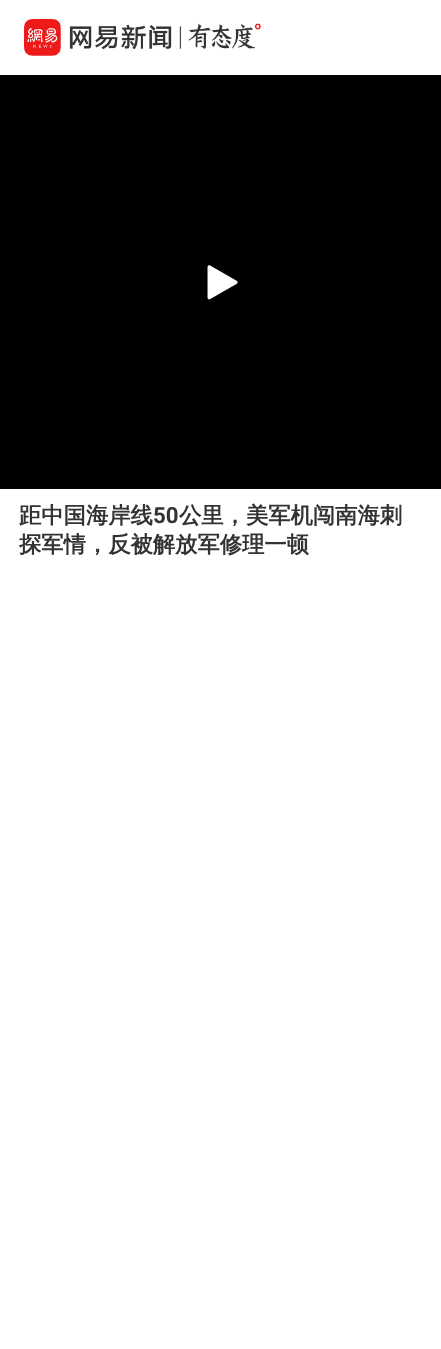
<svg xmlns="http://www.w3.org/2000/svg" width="441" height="1349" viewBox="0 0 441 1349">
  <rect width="100%" height="100%" fill="#ffffff"/>
  <image x="24" y="19" width="237" height="37" href="img1.png"/>
  <rect x="0" y="75" width="441" height="414" fill="#000000"/>
  <image x="207" y="265" width="31" height="35" href="img2.png"/>
  <text x="19" y="523" font-family="WenQuanYi Zen Hei" font-size="22.3" font-weight="bold" fill="#333333">距中国海岸线</text>
  <text x="153" y="523" font-family="Roboto" font-size="22.3" font-weight="bold" fill="#333333">50</text>
  <text x="179" y="523" font-family="WenQuanYi Zen Hei" font-size="22.3" font-weight="bold" fill="#333333">公里，美军机闯南海刺</text>
  <text x="19" y="552" font-family="WenQuanYi Zen Hei" font-size="22.3" font-weight="bold" fill="#333333">探军情，反被解放军修理一顿</text>
</svg>
